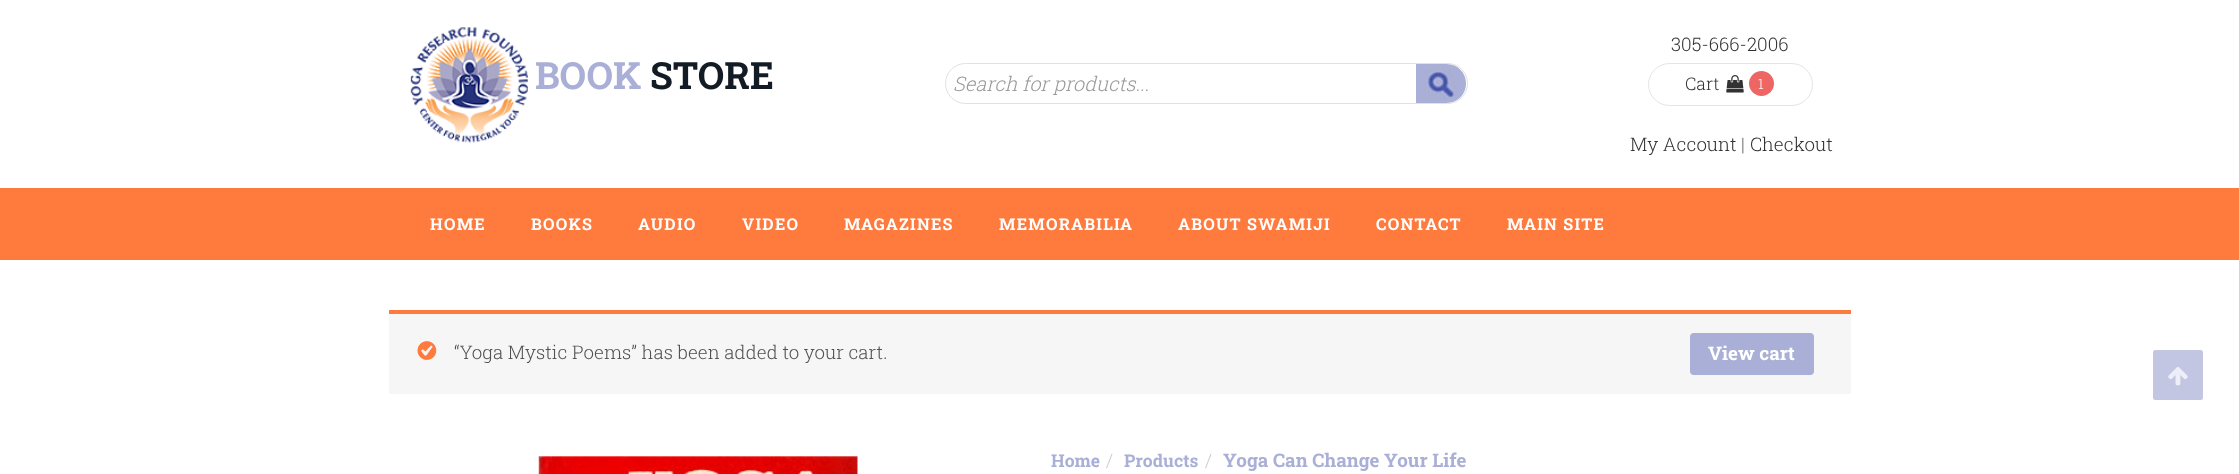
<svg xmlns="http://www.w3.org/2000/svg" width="2239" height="474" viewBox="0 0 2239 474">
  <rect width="100%" height="100%" fill="#ffffff"/>
  <image x="410" y="27" width="118" height="116" href="img1.png"/>
  <text x="535" y="89" font-family="Roboto Slab" font-size="37.5" font-weight="bold" fill="#a9afd6">BOOK</text>
  <text x="650" y="89" font-family="Roboto Slab" font-size="37.5" font-weight="bold" fill="#131c25">STORE</text>
  <rect x="945.5" y="63.5" width="522" height="40" rx="20" fill="none" stroke="#e1e1e1"/>
  <text x="953" y="91" font-family="Roboto Slab" font-size="20" font-weight="300" font-style="italic" fill="#999999">Search for products...</text>
  <path d="M1416 64H1446.5C1457.5 64 1466 72.5 1466 83.5C1466 94.5 1457.5 103 1446.5 103H1416Z" fill="#a9afd6"/>
  <image x="1425" y="69" width="30" height="31" href="img2.png"/>
  <text x="1671" y="51" font-family="Roboto Slab" font-size="18.75" font-weight="300" fill="#323232">305-666-2006</text>
  <rect x="1648.5" y="63.5" width="164" height="42" rx="21" fill="none" stroke="#e4e4e4"/>
  <text x="1685" y="90" font-family="Roboto Slab" font-size="17.5" font-weight="300" fill="#323232">Cart</text>
  <image x="1726" y="75" width="18" height="18" href="img3.png"/>
  <circle cx="1761.5" cy="83.5" r="12.5" fill="#ed6663"/>
  <text x="1758" y="89" font-family="Roboto Slab" font-size="14" font-weight="300" fill="#ffffff">1</text>
  <text x="1630" y="151" font-family="Roboto Slab" font-size="18.75" font-weight="300" fill="#323232">My Account</text>
  <text x="1741" y="151" font-family="Roboto Slab" font-size="18.75" font-weight="300" fill="#666666">|</text>
  <text x="1750" y="151" font-family="Roboto Slab" font-size="18.75" font-weight="300" fill="#323232">Checkout</text>
  <rect x="0" y="188" width="2239" height="72" fill="#ff7a3d"/>
  <text x="430" y="230" font-family="Roboto Slab" font-size="16.25" font-weight="bold" letter-spacing="1.25" fill="#ffffff">HOME</text>
  <text x="531" y="230" font-family="Roboto Slab" font-size="16.25" font-weight="bold" letter-spacing="1.25" fill="#ffffff">BOOKS</text>
  <text x="638" y="230" font-family="Roboto Slab" font-size="16.25" font-weight="bold" letter-spacing="1.25" fill="#ffffff">AUDIO</text>
  <text x="742" y="230" font-family="Roboto Slab" font-size="16.25" font-weight="bold" letter-spacing="1.25" fill="#ffffff">VIDEO</text>
  <text x="844" y="230" font-family="Roboto Slab" font-size="16.25" font-weight="bold" letter-spacing="1.25" fill="#ffffff">MAGAZINES</text>
  <text x="999" y="230" font-family="Roboto Slab" font-size="16.25" font-weight="bold" letter-spacing="1.25" fill="#ffffff">MEMORABILIA</text>
  <text x="1178" y="230" font-family="Roboto Slab" font-size="16.25" font-weight="bold" letter-spacing="1.25" fill="#ffffff">ABOUT SWAMIJI</text>
  <text x="1376" y="230" font-family="Roboto Slab" font-size="16.25" font-weight="bold" letter-spacing="1.25" fill="#ffffff">CONTACT</text>
  <text x="1507" y="230" font-family="Roboto Slab" font-size="16.25" font-weight="bold" letter-spacing="1.25" fill="#ffffff">MAIN SITE</text>
  <rect x="389" y="314" width="1462" height="80" fill="#f7f6f7"/>
  <rect x="389" y="310" width="1462" height="4" fill="#ff7a3d"/>
  <image x="417" y="341" width="20" height="19" href="img4.png"/>
  <text x="454" y="359" font-family="Roboto Slab" font-size="18.75" font-weight="300" fill="#515151">“Yoga Mystic Poems” has been added to your cart.</text>
  <rect x="1690" y="333" width="124" height="42" rx="4" fill="#a9afd6"/>
  <text x="1708" y="360" font-family="Roboto Slab" font-size="18.75" font-weight="bold" fill="#ffffff">View cart</text>
  <image x="538" y="456" width="320" height="18" href="img5.png"/>
  <text x="1051" y="467" font-family="Roboto Slab" font-size="17.5" font-weight="bold" fill="#a9afd6">Home</text>
  <text x="1106" y="467" font-family="Roboto Slab" font-size="18.75" font-weight="300" fill="#cccccc">/</text>
  <text x="1124" y="467" font-family="Roboto Slab" font-size="17.5" font-weight="bold" fill="#a9afd6">Products</text>
  <text x="1205" y="467" font-family="Roboto Slab" font-size="18.75" font-weight="300" fill="#cccccc">/</text>
  <text x="1223" y="467" font-family="Roboto Slab" font-size="18.75" font-weight="bold" fill="#a9afd6">Yoga Can Change Your Life</text>
  <rect x="2154.5" y="351.5" width="47" height="47" rx="1" fill="#c3c6e3" stroke="#c3c6e3" stroke-width="3"/>
  <image x="2168" y="367" width="20" height="19" href="img6.png"/>
</svg>
